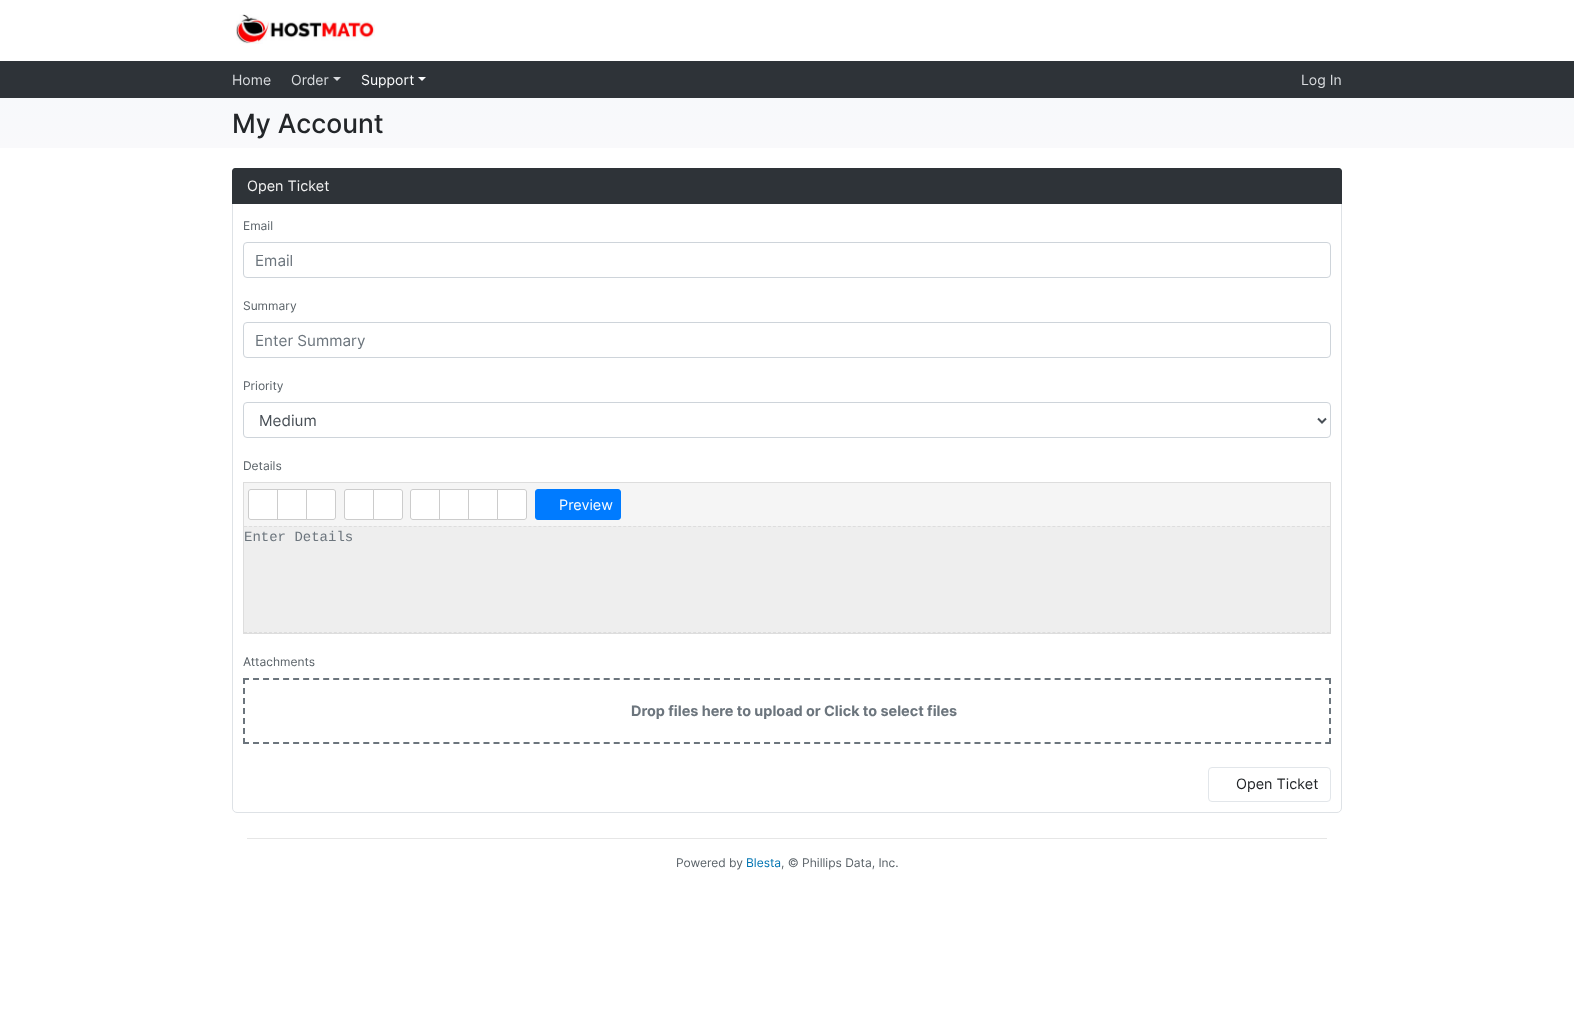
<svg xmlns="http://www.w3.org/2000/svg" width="1574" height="1010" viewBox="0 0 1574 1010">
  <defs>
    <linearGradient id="g1" gradientUnits="userSpaceOnUse" x1="787" y1="98" x2="787" y2="148"><stop offset="0" stop-color="#f7f9fb"/><stop offset="1" stop-color="#f9f9fb"/></linearGradient>
  </defs>
  <rect width="100%" height="100%" fill="#ffffff"/>
  <image x="236" y="14" width="139" height="30" href="img1.png"/>
  <rect x="0" y="61" width="1574" height="37" fill="#2e3338"/>
  <text x="232" y="85" font-family="Inter" font-size="14" fill="#d8dbde">Home</text>
  <text x="291" y="85" font-family="Inter" font-size="14" fill="#d8dbde">Order</text>
  <path d="M333 77H341L337 81Z" fill="#d8dbde"/>
  <text x="361" y="85" font-family="Inter" font-size="14" fill="#fbfcfd">Support</text>
  <path d="M418 77H426L422 81Z" fill="#fbfcfd"/>
  <text x="1301" y="85" font-family="Inter" font-size="14" fill="#d8dbde">Log In</text>
  <rect x="0" y="98" width="1574" height="50" fill="url(#g1)"/>
  <text x="232" y="133" font-family="Inter" font-size="26.5" font-weight="500" fill="#232629">My Account</text>
  <rect x="232.5" y="168.5" width="1109" height="644" rx="4.5" fill="none" stroke="#dee2e6"/>
  <path d="M235 168H1339C1340.5 168 1342 169.5 1342 171V204H232V171C232 169.5 233.5 168 235 168Z" fill="#2e3338"/>
  <text x="247" y="191" font-family="Inter" font-size="14.4" fill="#f2f2f2">Open Ticket</text>
  <text x="243" y="230" font-family="Inter" font-size="12" fill="#5a6268">Email</text>
  <rect x="243.5" y="242.5" width="1087" height="35" rx="3.5" fill="none" stroke="#ced4da"/>
  <text x="255" y="266" font-family="Inter" font-size="15.25" fill="#6c757d">Email</text>
  <text x="243" y="310" font-family="Inter" font-size="12" fill="#5a6268">Summary</text>
  <rect x="243.5" y="322.5" width="1087" height="35" rx="3.5" fill="none" stroke="#ced4da"/>
  <text x="255" y="346" font-family="Inter" font-size="15.25" fill="#6c757d">Enter Summary</text>
  <text x="243" y="390" font-family="Inter" font-size="12" fill="#5a6268">Priority</text>
  <rect x="243.5" y="402.5" width="1087" height="35" rx="3.5" fill="none" stroke="#ced4da"/>
  <path d="M1318 418.5L1322 422.5L1326 418.5" fill="none" stroke="#495057" stroke-width="2"/>
  <text x="259" y="426" font-family="Inter" font-size="15.25" fill="#495057">Medium</text>
  <text x="243" y="470" font-family="Inter" font-size="12" fill="#5a6268">Details</text>
  <rect x="243.5" y="482.5" width="1087" height="151" fill="none" stroke="#dddddd"/>
  <rect x="244" y="483" width="1086" height="43" fill="#f5f5f5"/>
  <path d="M251 489.5H277.5V519.5H251C249.5 519.5 248.5 518.5 248.5 517V492C248.5 490.5 249.5 489.5 251 489.5Z" fill="#ffffff" stroke="#cccccc"/>
  <rect x="277.5" y="489.5" width="29" height="30" fill="#ffffff" stroke="#cccccc"/>
  <path d="M306.5 489.5H333C334.5 489.5 335.5 490.5 335.5 492V517C335.5 518.5 334.5 519.5 333 519.5H306.5Z" fill="#ffffff" stroke="#cccccc"/>
  <path d="M347 489.5H373.5V519.5H347C345.5 519.5 344.5 518.5 344.5 517V492C344.5 490.5 345.5 489.5 347 489.5Z" fill="#ffffff" stroke="#cccccc"/>
  <path d="M373.5 489.5H400C401.5 489.5 402.5 490.5 402.5 492V517C402.5 518.5 401.5 519.5 400 519.5H373.5Z" fill="#ffffff" stroke="#cccccc"/>
  <path d="M413 489.5H439.5V519.5H413C411.5 519.5 410.5 518.5 410.5 517V492C410.5 490.5 411.5 489.5 413 489.5Z" fill="#ffffff" stroke="#cccccc"/>
  <rect x="439.5" y="489.5" width="29" height="30" fill="#ffffff" stroke="#cccccc"/>
  <rect x="468.5" y="489.5" width="29" height="30" fill="#ffffff" stroke="#cccccc"/>
  <path d="M497.5 489.5H524C525.5 489.5 526.5 490.5 526.5 492V517C526.5 518.5 525.5 519.5 524 519.5H497.5Z" fill="#ffffff" stroke="#cccccc"/>
  <rect x="535.5" y="489.5" width="85" height="30" rx="2.5" fill="#007bff" stroke="#007bff"/>
  <text x="559" y="510" font-family="Inter" font-size="14.4" fill="#fbfcfd">Preview</text>
  <rect x="244" y="526" width="1086" height="107" fill="#eeeeee"/>
  <path d="M244 526.5H1330" fill="none" stroke="#dddddd" stroke-dasharray="3 1.99"/>
  <path d="M244 632.5H1330" fill="none" stroke="#dddddd" stroke-dasharray="3 1.99"/>
  <text x="244" y="541" font-family="Liberation Mono" font-size="14" fill="#6c757d">Enter Details</text>
  <text x="243" y="666" font-family="Inter" font-size="12" fill="#5a6268">Attachments</text>
  <path d="M243 679H1331" fill="none" stroke="#6c757d" stroke-width="2" stroke-dasharray="6 4.02"/>
  <path d="M1330 678V744" fill="none" stroke="#6c757d" stroke-width="2" stroke-dasharray="6 4"/>
  <path d="M243 743H1331" fill="none" stroke="#6c757d" stroke-width="2" stroke-dasharray="6 4.02"/>
  <path d="M244 678V744" fill="none" stroke="#6c757d" stroke-width="2" stroke-dasharray="6 4"/>
  <text x="631" y="716" font-family="Inter" font-size="14.4" font-weight="bold" fill="#6c757d">Drop files here to upload or Click to select files</text>
  <rect x="1208.5" y="767.5" width="122" height="34" rx="3.5" fill="none" stroke="#e2e6ea"/>
  <text x="1236" y="789" font-family="Inter" font-size="14.4" fill="#232629">Open Ticket</text>
  <rect x="247" y="838" width="1080" height="1" fill="#e6e6e6"/>
  <text x="676" y="867" font-family="Inter" font-size="12" fill="#5a6268">Powered by</text>
  <text x="746" y="867" font-family="Inter" font-size="12" fill="#0074b2">Blesta</text>
  <text x="781" y="867" font-family="Inter" font-size="12" fill="#5a6268">, © Phillips Data, Inc.</text>
</svg>
